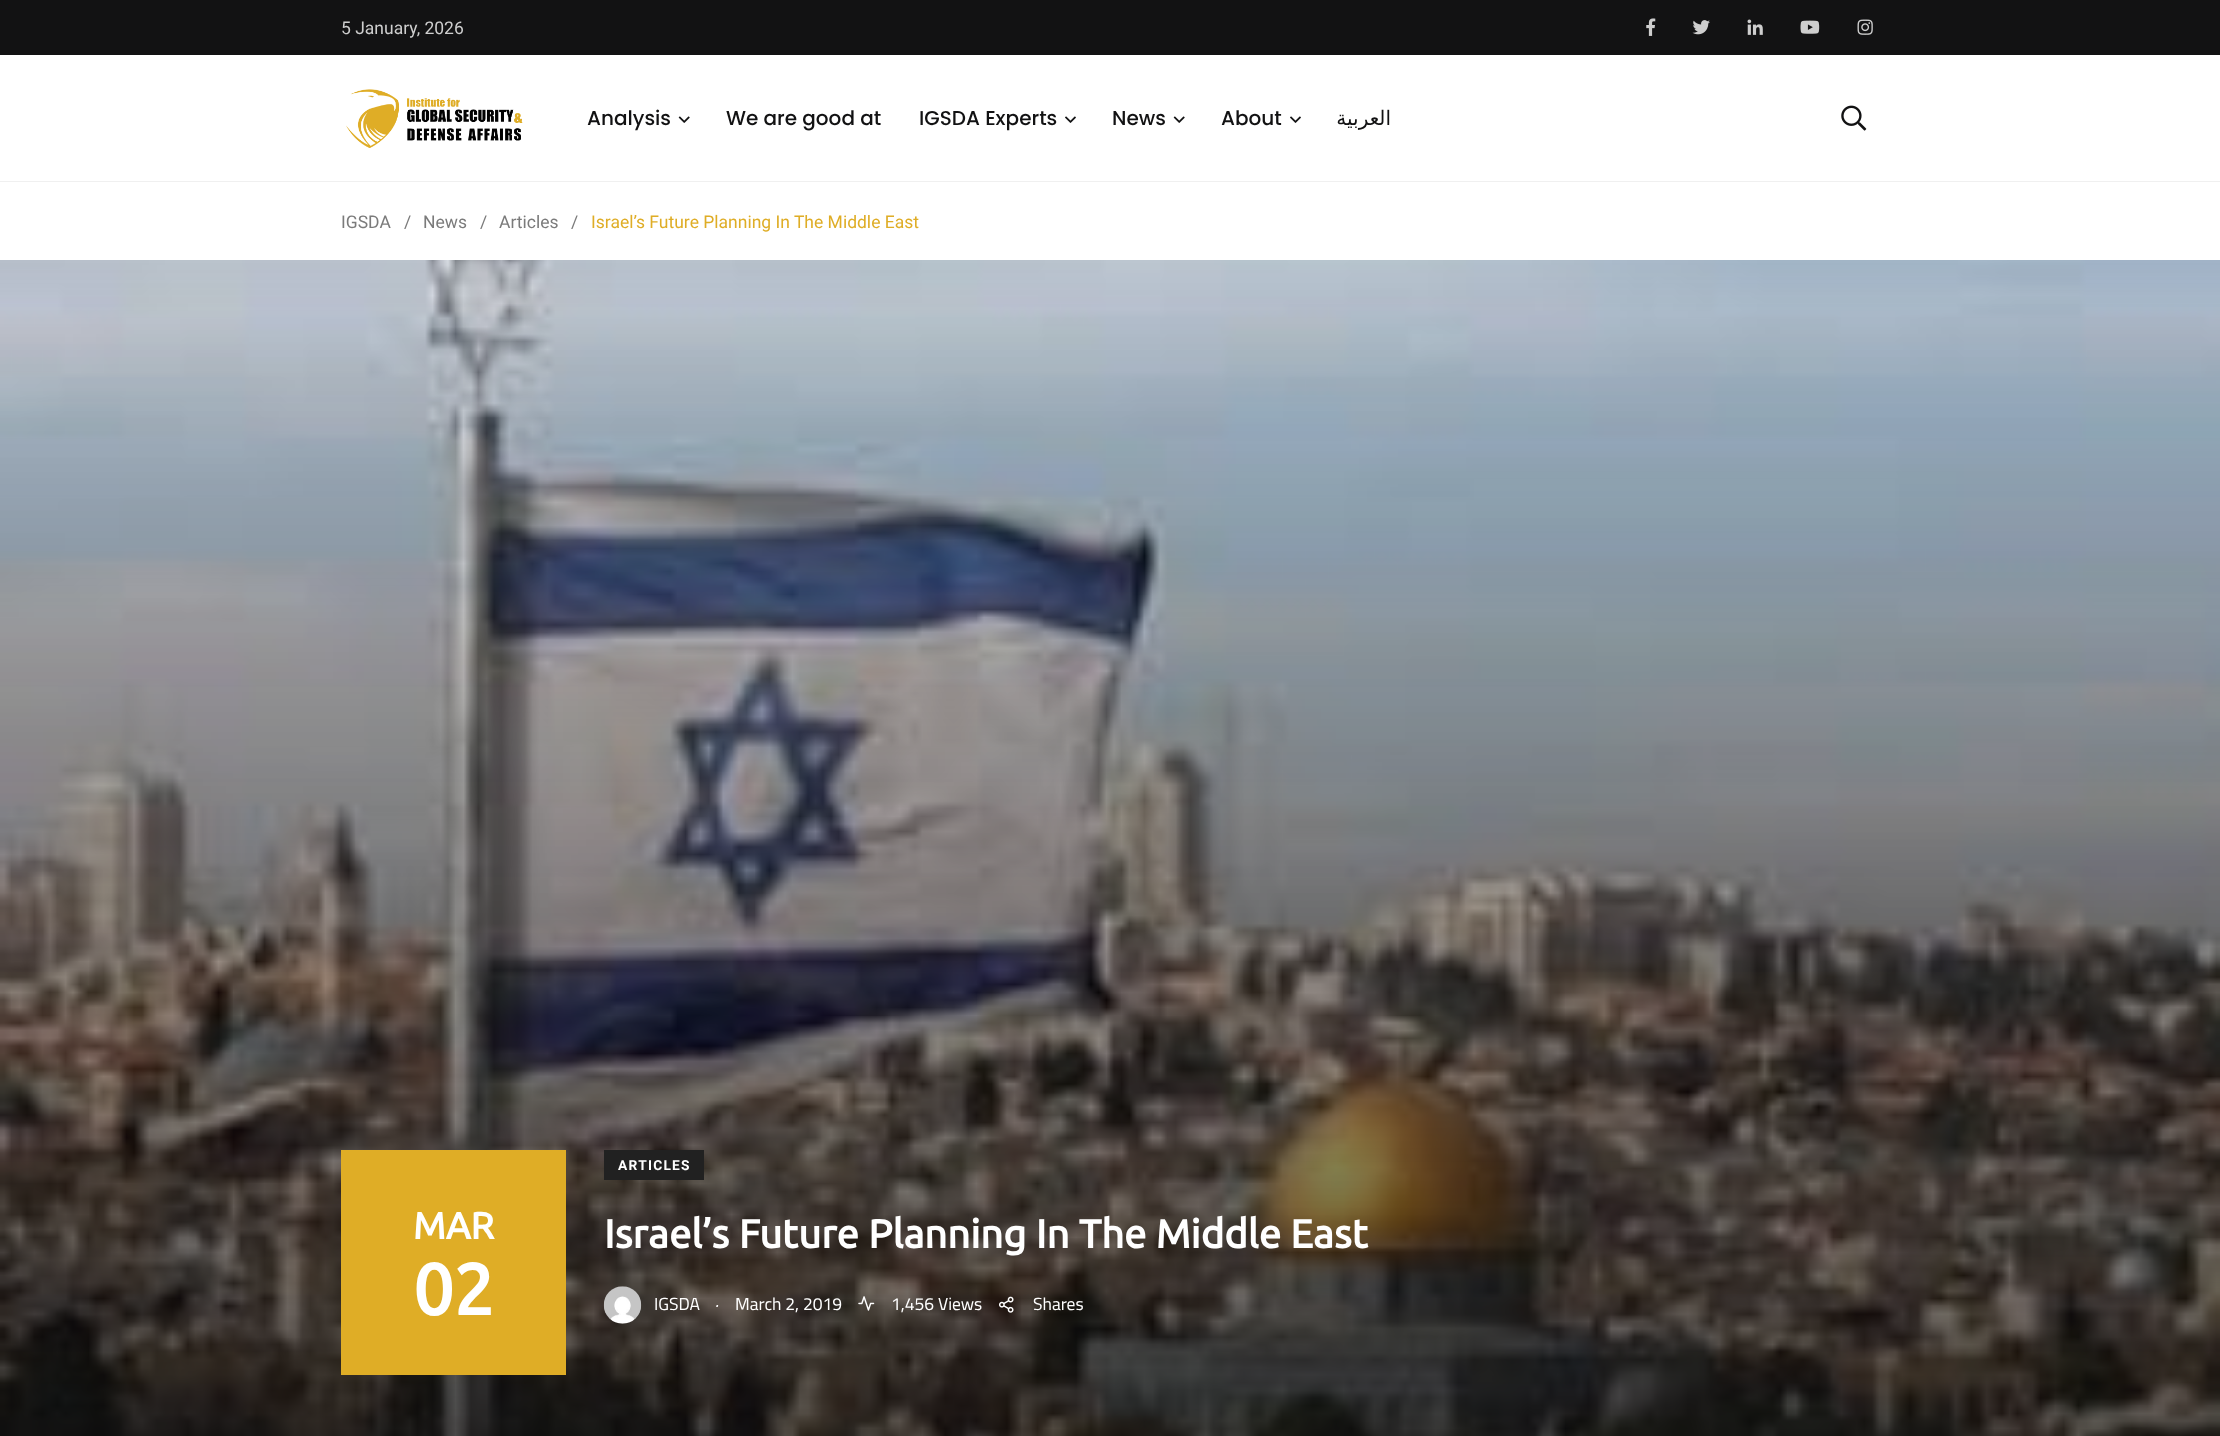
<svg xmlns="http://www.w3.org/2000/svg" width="2220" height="1436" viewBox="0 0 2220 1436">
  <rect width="100%" height="100%" fill="#ffffff"/>
  <rect x="0" y="0" width="2220" height="55" fill="#121213"/>
  <text x="341" y="34" font-family="Roboto" font-size="17.5" fill="#cecece">5 January, 2026</text>
  <image x="1646" y="18" width="10" height="18" href="img1.png"/>
  <image x="1692" y="20" width="18" height="15" href="img2.png"/>
  <image x="1747" y="19" width="16" height="16" href="img3.png"/>
  <image x="1800" y="20" width="20" height="14" href="img4.png"/>
  <image x="1857" y="19" width="16" height="16" href="img5.png"/>
  <rect x="0" y="181" width="2220" height="1" fill="#f0f0f0"/>
  <image x="346" y="89" width="177" height="59" href="img6.png"/>
  <text x="587" y="125" font-family="Poppins" font-size="20" font-weight="500" fill="#121213">Analysis</text>
  <image x="678" y="116" width="12" height="7" href="img7.png"/>
  <text x="726" y="125" font-family="Poppins" font-size="20" font-weight="500" fill="#121213">We are good at</text>
  <text x="919" y="125" font-family="Poppins" font-size="20" font-weight="500" fill="#121213">IGSDA Experts</text>
  <image x="1065" y="116" width="11" height="7" href="img8.png"/>
  <text x="1112" y="125" font-family="Poppins" font-size="20" font-weight="500" fill="#121213">News</text>
  <image x="1173" y="116" width="12" height="7" href="img7.png"/>
  <text x="1221" y="125" font-family="Poppins" font-size="20" font-weight="500" fill="#121213">About</text>
  <image x="1290" y="116" width="11" height="7" href="img8.png"/>
  <text x="1391" y="125" font-family="DejaVu Sans" font-size="20" direction="rtl" fill="#121213">العربية</text>
  <image x="1841" y="105" width="26" height="26" href="img9.png"/>
  <text x="341" y="228" font-family="Roboto" font-size="17.5" fill="#7b7b7b">IGSDA</text>
  <text x="404" y="228" font-family="Roboto" font-size="17.5" fill="#7b7b7b">/</text>
  <text x="423" y="228" font-family="Roboto" font-size="17.5" fill="#7b7b7b">News</text>
  <text x="480" y="228" font-family="Roboto" font-size="17.5" fill="#7b7b7b">/</text>
  <text x="499" y="228" font-family="Roboto" font-size="17.5" fill="#7b7b7b">Articles</text>
  <text x="571" y="228" font-family="Roboto" font-size="17.5" fill="#7b7b7b">/</text>
  <text x="591" y="228" font-family="Roboto" font-size="17.5" fill="#dfad26">Israel’s Future Planning In The Middle East</text>
  <image x="0" y="260" width="2220" height="1176" href="img10.png"/>
  <rect x="341" y="1150" width="225" height="225" fill="#dfad26"/>
  <text x="413" y="1239" font-family="Ubuntu" font-size="37.5" font-weight="bold" fill="#ffffff">MAR</text>
  <text x="413" y="1315" font-family="Ubuntu" font-size="72" font-weight="bold" fill="#ffffff">02</text>
  <rect x="604" y="1150" width="100" height="30" fill="#212121"/>
  <text x="618" y="1170" font-family="Roboto" font-size="13.75" font-weight="bold" letter-spacing="1.25" fill="#ffffff">ARTICLES</text>
  <text x="604" y="1248" font-family="Ubuntu" font-size="40" font-weight="bold" fill="#ffffff">Israel’s Future Planning In The Middle East</text>
  <image x="603" y="1286" width="39" height="38" href="img11.png"/>
  <text x="654" y="1310" font-family="Cairo" font-size="17.5" fill="#ffffff">IGSDA</text>
  <text x="715" y="1307" font-family="Cairo" font-size="17.5" font-style="italic" fill="#ffffff">.</text>
  <text x="735" y="1310" font-family="Cairo" font-size="17.5" fill="#ffffff">March 2, 2019</text>
  <image x="858" y="1296" width="17" height="15" href="img12.png"/>
  <text x="891" y="1310" font-family="Cairo" font-size="17.5" fill="#ffffff">1,456 Views</text>
  <image x="999" y="1296" width="15" height="17" href="img13.png"/>
  <text x="1033" y="1310" font-family="Cairo" font-size="17.5" fill="#ffffff">Shares</text>
</svg>
